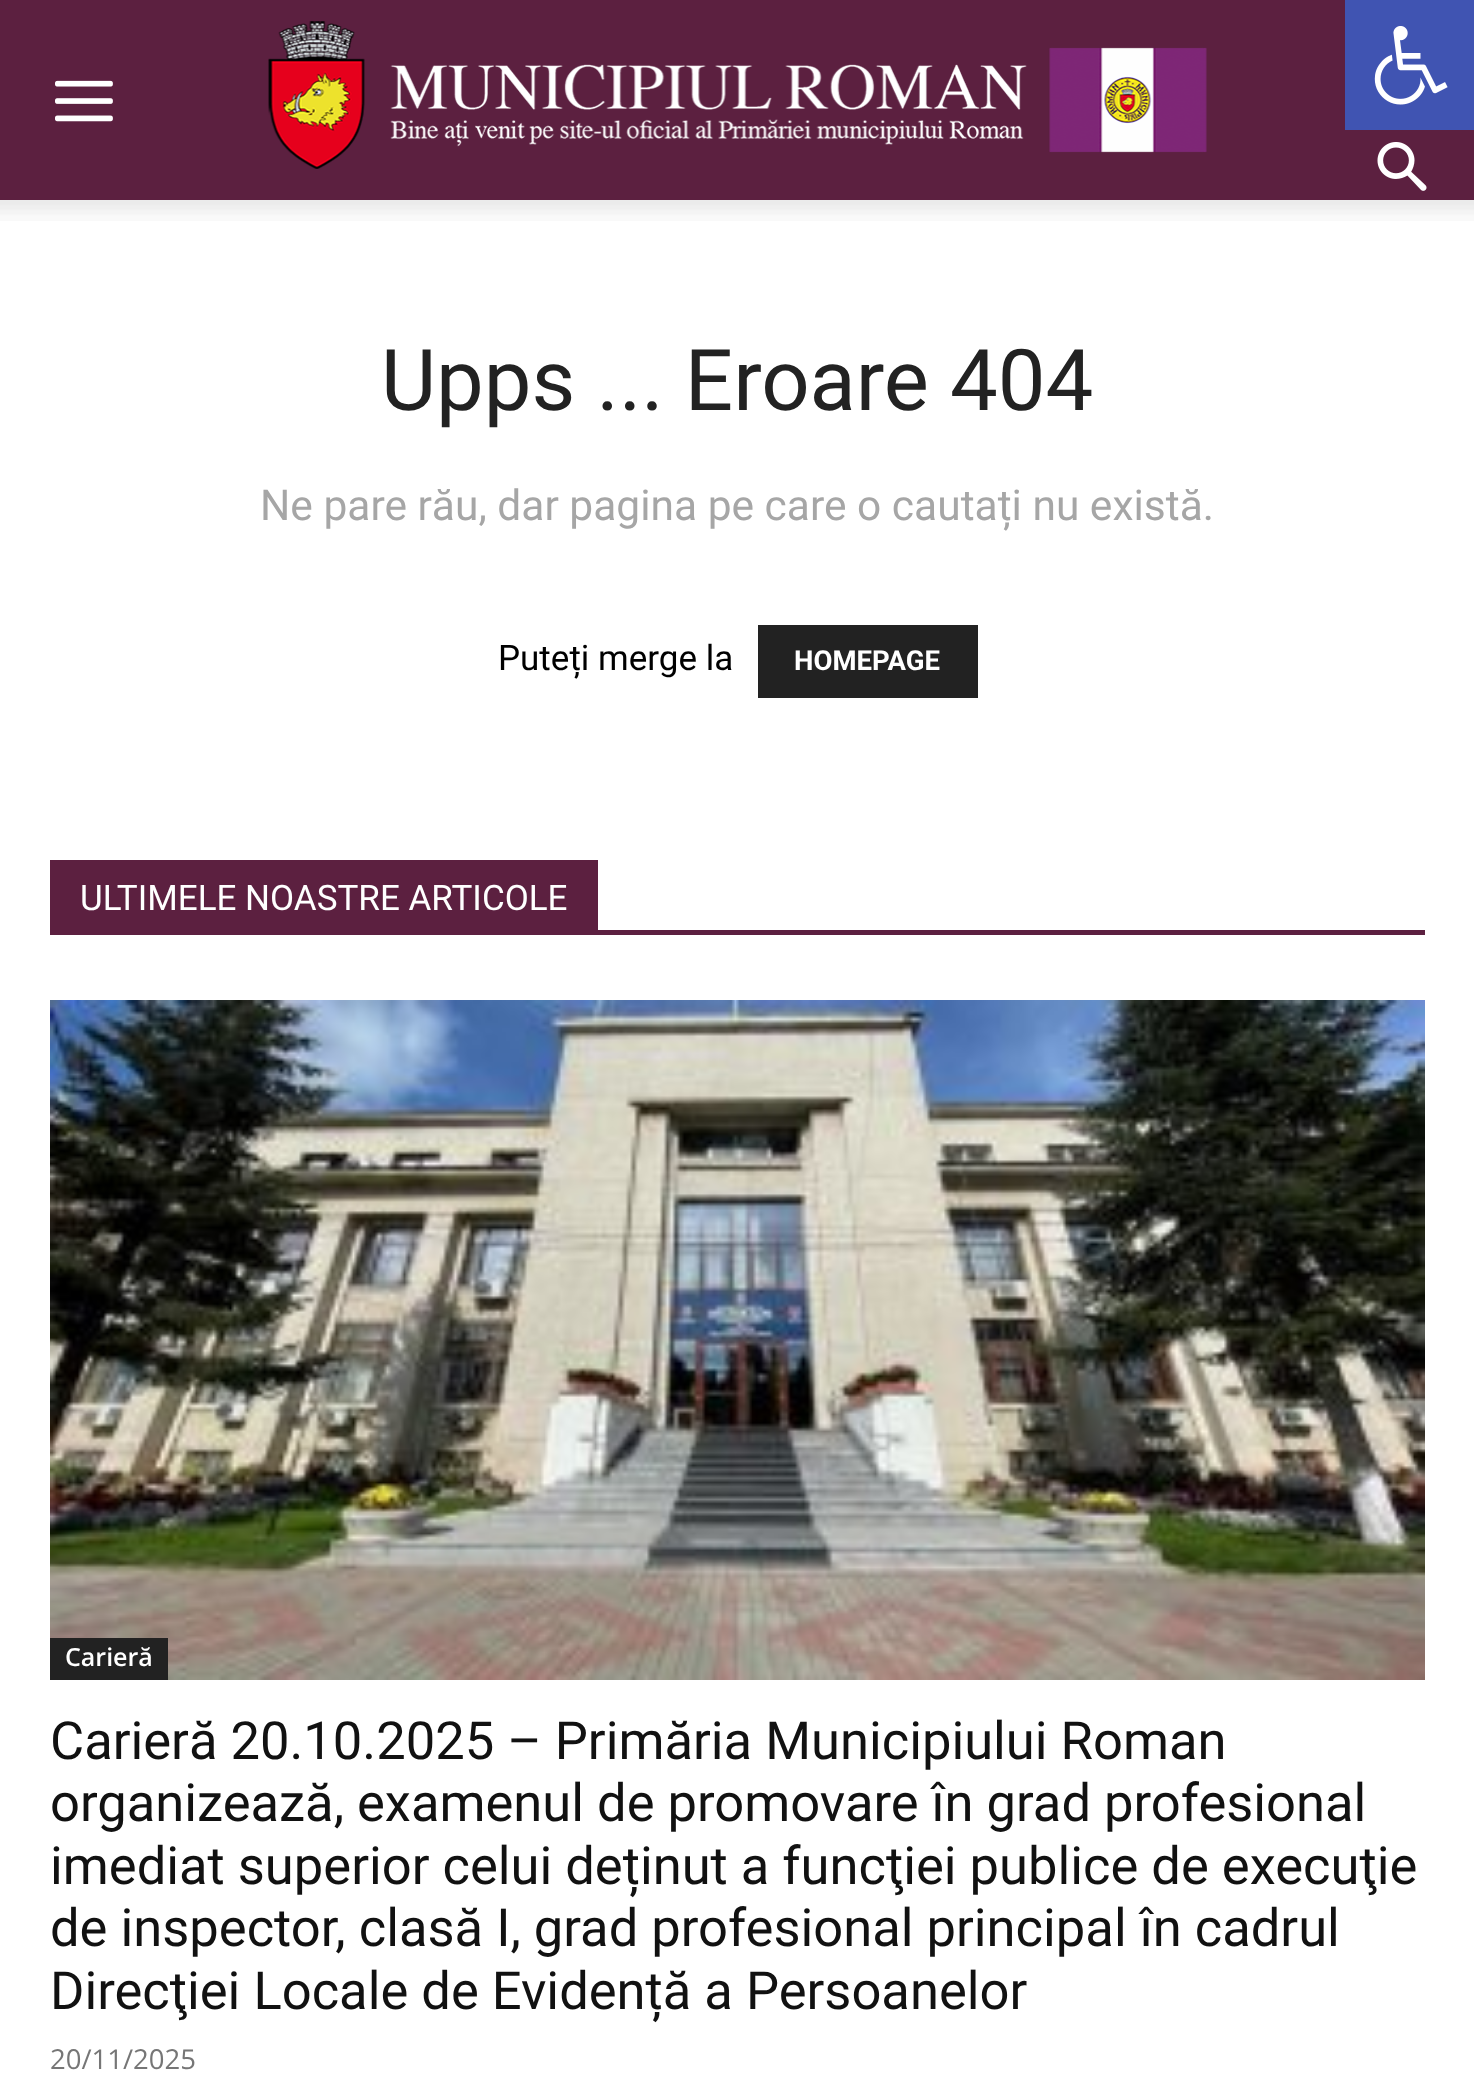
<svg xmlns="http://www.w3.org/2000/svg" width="1474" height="2088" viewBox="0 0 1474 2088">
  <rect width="100%" height="100%" fill="#ffffff"/>
  <rect x="0" y="0" width="1474" height="200" fill="#5c2040"/>
  <rect x="1345" y="0" width="129" height="130" fill="#4054b2"/>
  <image x="1374" y="26" width="74" height="79" href="img1.png"/>
  <image x="55" y="80" width="58" height="42" href="img2.png"/>
  <image x="268" y="21" width="939" height="148" href="img3.png"/>
  <image x="1377" y="142" width="50" height="49" href="img4.png"/>
  <image x="0" y="200" width="1474" height="21" href="img5.png"/>
  <text x="381" y="410" font-family="Roboto" font-size="85" fill="#222222">Upps ... Eroare 404</text>
  <text x="260" y="520" font-family="Roboto" font-size="42.5" fill="#a6a6a6">Ne pare rău, dar pagina pe care o cautați nu există.</text>
  <text x="498" y="670" font-family="Roboto" font-size="35" fill="#000000">Puteți merge la</text>
  <rect x="758" y="625" width="220" height="73" fill="#222222"/>
  <text x="794" y="670" font-family="Roboto" font-size="27.5" font-weight="bold" fill="#ffffff">HOMEPAGE</text>
  <rect x="50" y="930" width="1375" height="5" fill="#5c2040"/>
  <rect x="50" y="860" width="548" height="70" fill="#5c2040"/>
  <text x="80" y="910" font-family="Roboto" font-size="35" fill="#ffffff">ULTIMELE NOASTRE ARTICOLE</text>
  <image x="50" y="1000" width="1375" height="680" href="img6.png"/>
  <rect x="50" y="1638" width="118" height="42" fill="#222222"/>
  <text x="65" y="1666" font-family="Open Sans" font-size="25" font-weight="600" fill="#ffffff">Carieră</text>
  <text x="50" y="1759" font-family="Roboto" font-size="52.5" fill="#111111">Carieră 20.10.2025 – Primăria Municipiului Roman</text>
  <text x="50" y="1821" font-family="Roboto" font-size="52.5" fill="#111111">organizează, examenul de promovare în grad profesional</text>
  <text x="50" y="1884" font-family="Roboto" font-size="52.5" fill="#111111">imediat superior celui deținut a funcţiei publice de execuţie</text>
  <text x="50" y="1946" font-family="Roboto" font-size="52.5" fill="#111111">de inspector, clasă I, grad profesional principal în cadrul</text>
  <text x="50" y="2009" font-family="Roboto" font-size="52.5" fill="#111111">Direcţiei Locale de Evidență a Persoanelor</text>
  <text x="50" y="2069" font-family="Open Sans" font-size="27.5" fill="#767676">20/11/2025</text>
</svg>
